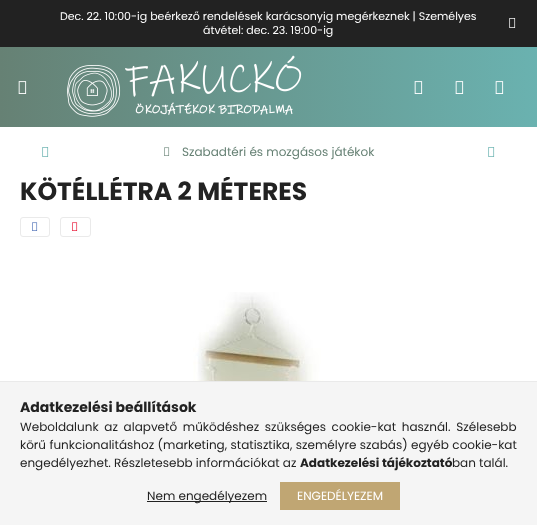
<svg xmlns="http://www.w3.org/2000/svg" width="537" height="525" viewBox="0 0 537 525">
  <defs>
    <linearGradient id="g1" gradientUnits="userSpaceOnUse" x1="0" y1="87" x2="537" y2="87"><stop offset="0" stop-color="#668174"/><stop offset="1" stop-color="#6ab2b0"/></linearGradient>
    <clipPath id="clip1"><rect x="20" y="177" width="287" height="30"/></clipPath>
  </defs>
  <rect width="100%" height="100%" fill="#ffffff"/>
  <rect x="0" y="0" width="537" height="47" fill="#222222"/>
  <text x="60" y="20" font-family="Poppins" font-size="11" fill="#ffffff">Dec. 22. 10:00-ig beérkező rendelések karácsonyig megérkeznek | Személyes</text>
  <text x="203" y="34" font-family="Poppins" font-size="11" fill="#ffffff">átvétel: dec. 23. 19:00-ig</text>
  <image x="509" y="18" width="7" height="10" href="img1.png"/>
  <rect x="0" y="47" width="537" height="80" fill="url(#g1)"/>
  <image x="18" y="81" width="9" height="13" href="img2.png"/>
  <image x="67" y="55" width="235" height="62" href="img3.png"/>
  <image x="414" y="81" width="9" height="13" href="img4.png"/>
  <image x="455" y="81" width="9" height="13" href="img5.png"/>
  <image x="495" y="81" width="9" height="13" href="img6.png"/>
  <image x="42" y="147" width="7" height="10" href="img7.png"/>
  <image x="164" y="147" width="6" height="9" href="img8.png"/>
  <text x="182" y="156" font-family="Poppins" font-size="12" fill="#668174">Szabadtéri és mozgásos játékok</text>
  <image x="488" y="147" width="7" height="10" href="img7.png"/>
  <g clip-path="url(#clip1)">
    <text x="20" y="200" font-family="Poppins" font-size="25" font-weight="bold" fill="#222222">KÖTÉLLÉTRA 2 MÉTERES</text>
  </g>
  <rect x="20.5" y="217.5" width="29" height="19" rx="2.5" fill="none" stroke="#eaeaea"/>
  <image x="32" y="222" width="6" height="9" href="img9.png"/>
  <rect x="60.5" y="217.5" width="30" height="19" rx="2.5" fill="none" stroke="#eaeaea"/>
  <image x="72" y="222" width="6" height="9" href="img10.png"/>
  <image x="193" y="292" width="131" height="89" href="img11.png"/>
  <rect x="0" y="382" width="537" height="143" fill="#f5f5f5"/>
  <rect x="0" y="381" width="537" height="1" fill="#eaeaea"/>
  <text x="20" y="412" font-family="Poppins" font-size="14" font-weight="bold" fill="#222222">Adatkezelési beállítások</text>
  <text x="20" y="431" word-spacing="2.5" font-family="Poppins" font-size="12" fill="#222222">Weboldalunk az alapvető működéshez szükséges cookie-kat használ. Szélesebb</text>
  <text x="20" y="449" word-spacing="0.25" font-family="Poppins" font-size="12" fill="#222222">körű funkcionalitáshoz (marketing, statisztika, személyre szabás) egyéb cookie-kat</text>
  <text x="20" y="467" font-family="Poppins" font-size="12" fill="#222222">engedélyezhet. Részletesebb információkat az</text>
  <text x="300" y="467" font-family="Poppins" font-size="12" font-weight="bold" fill="#222222">Adatkezelési tájékoztató</text>
  <text x="452" y="467" font-family="Poppins" font-size="12" fill="#222222">ban talál.</text>
  <rect x="147" y="501" width="120" height="1" fill="#222222"/>
  <text x="147" y="500" font-family="Poppins" font-size="12" fill="#222222">Nem engedélyezem</text>
  <rect x="280" y="482" width="120" height="28" fill="#c0a673"/>
  <text x="297" y="500" font-family="Poppins" font-size="12" fill="#ffffff">ENGEDÉLYEZEM</text>
</svg>
